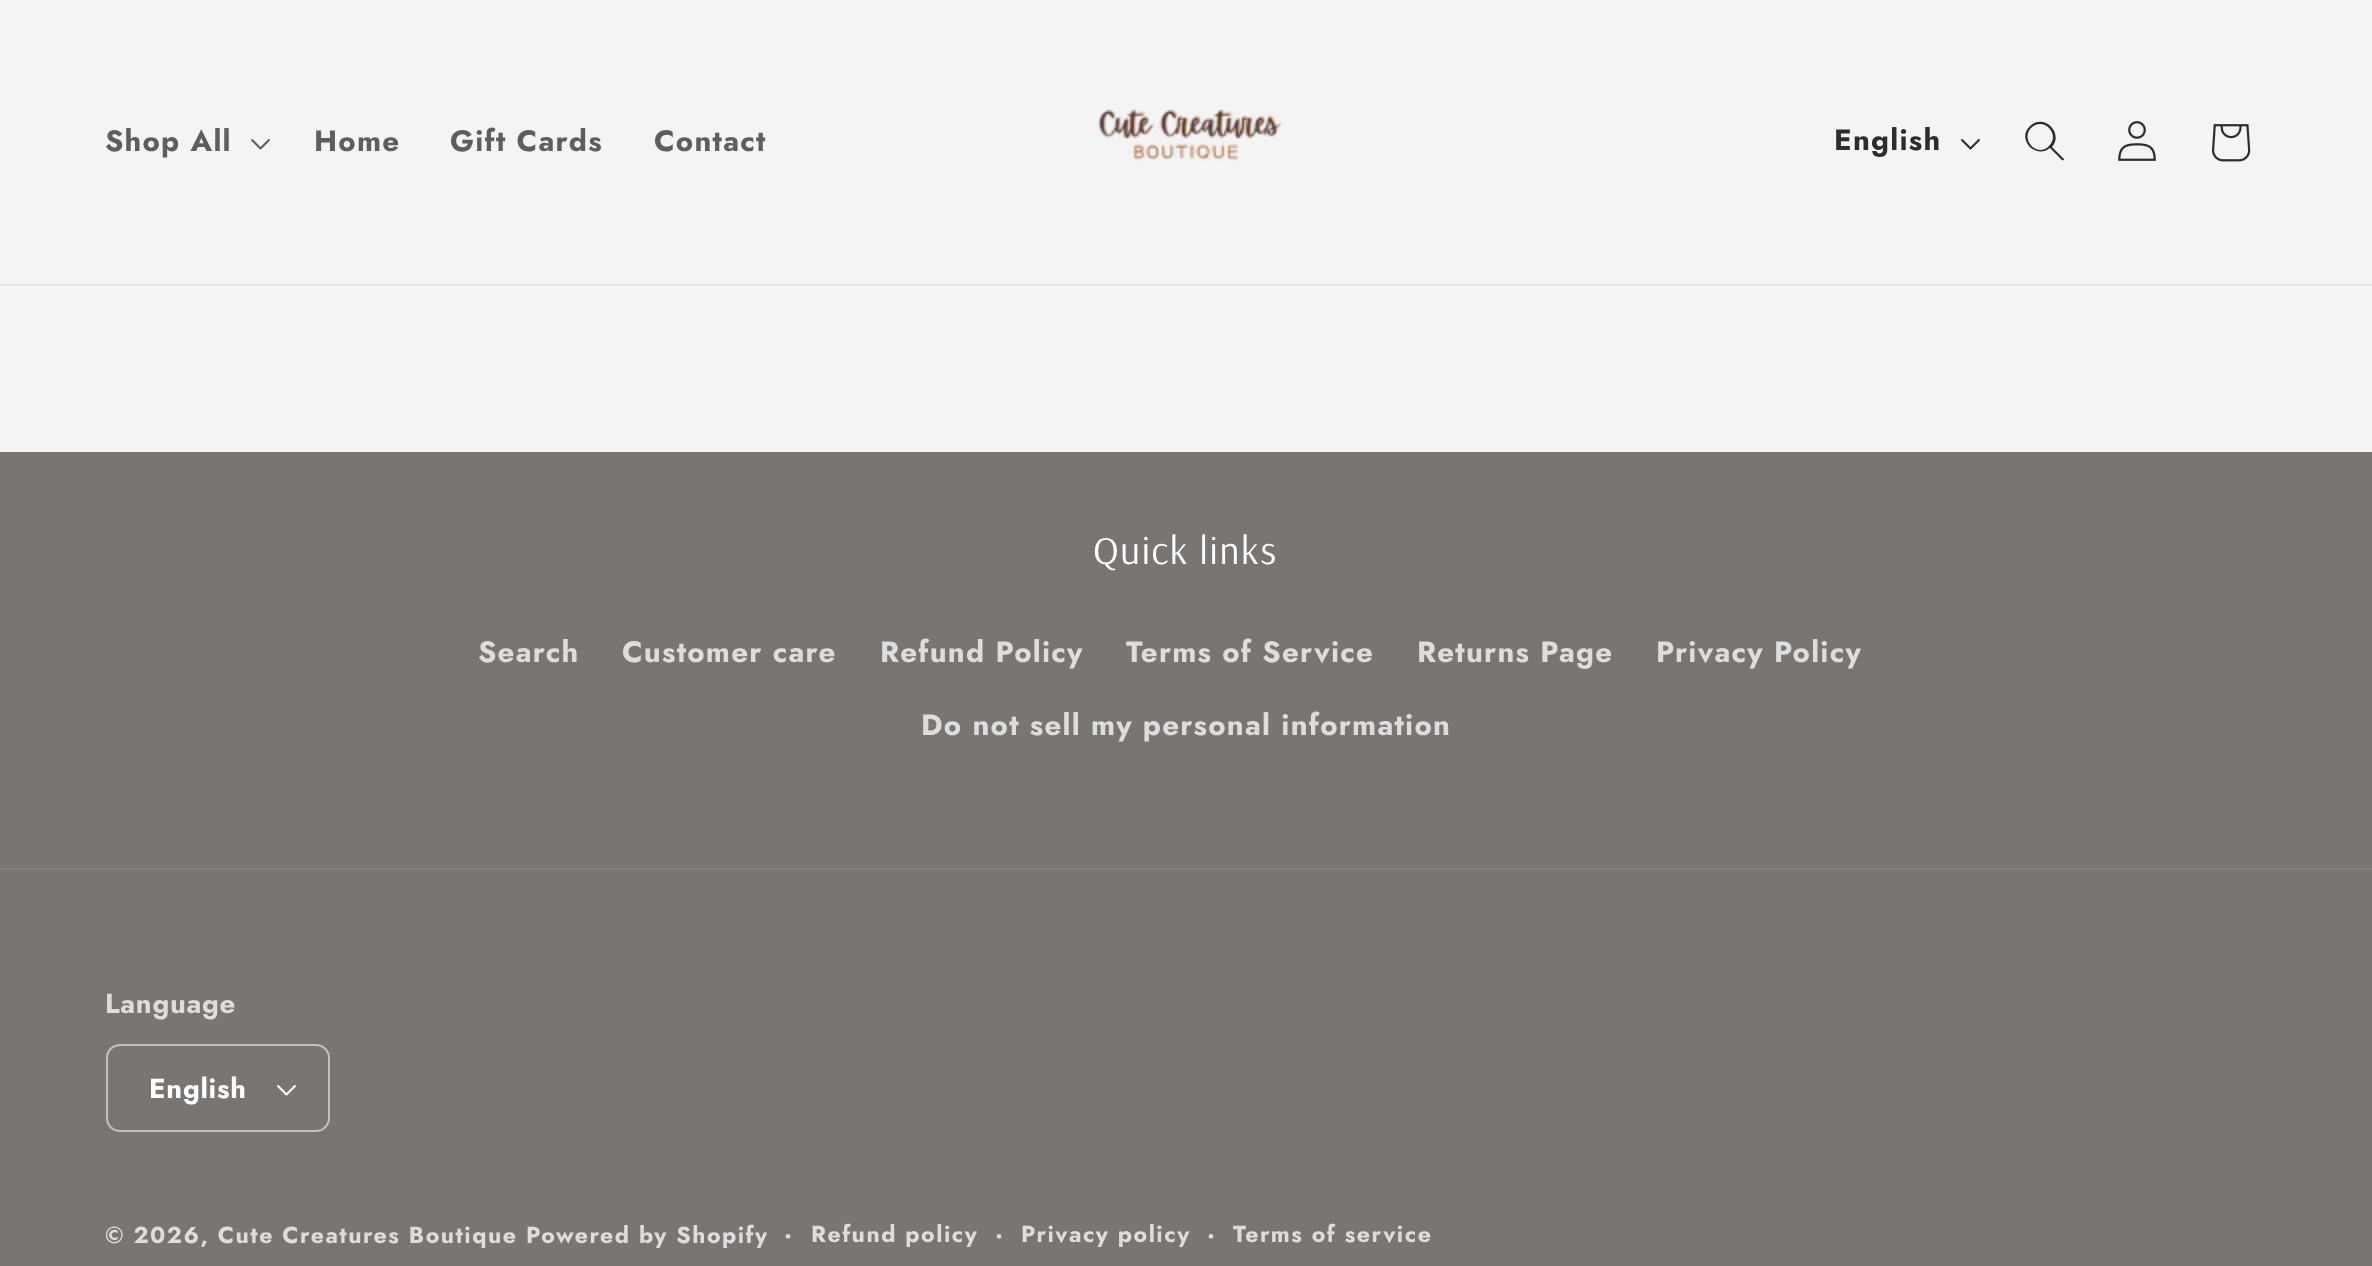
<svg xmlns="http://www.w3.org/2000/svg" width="2372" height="1266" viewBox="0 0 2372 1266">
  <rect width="100%" height="100%" fill="#f4f4f4"/>
  <rect x="0" y="284" width="2372" height="2" fill="#e4e4e4"/>
  <text x="105" y="151" font-family="Jost" font-size="29.4" font-weight="bold" letter-spacing="1.25" fill="#5d5e5f">Shop All</text>
  <image x="251" y="139" width="19" height="11" href="img1.png"/>
  <text x="314" y="151" font-family="Jost" font-size="29.4" font-weight="bold" letter-spacing="1.25" fill="#5d5e5f">Home</text>
  <text x="450" y="151" font-family="Jost" font-size="29.4" font-weight="bold" letter-spacing="1.25" fill="#5d5e5f">Gift Cards</text>
  <text x="654" y="151" font-family="Jost" font-size="29.4" font-weight="bold" letter-spacing="1.25" fill="#5d5e5f">Contact</text>
  <image x="1097" y="109" width="185" height="52" href="img2.png"/>
  <text x="1834" y="150" font-family="Jost" font-size="29.4" font-weight="bold" letter-spacing="1.25" fill="#2b2c2d">English</text>
  <image x="1961" y="139" width="19" height="11" href="img3.png"/>
  <path d="M2049 146C2038 158 2020 140 2031 128C2043 116 2061 134 2049 146M2050 148C2036 160 2016 139 2030 126C2044 113 2064 133 2052 147L2064 159C2064 160 2063 161 2062 160Z" fill="#2b2c2d" fill-rule="evenodd"/>
  <image x="2118" y="121" width="38" height="40" href="img4.png"/>
  <image x="2212" y="124" width="39" height="38" href="img5.png"/>
  <rect x="0" y="452" width="2372" height="814" fill="#797572"/>
  <text x="1093" y="564" font-family="Arsenal" font-size="39.5" letter-spacing="1.25" fill="#ffffff">Quick links</text>
  <text x="478" y="662" font-family="Jost" font-size="29.4" font-weight="bold" letter-spacing="1.25" fill="#dedddc">Search</text>
  <text x="622" y="662" font-family="Jost" font-size="29.4" font-weight="bold" letter-spacing="1.25" fill="#dedddc">Customer care</text>
  <text x="880" y="662" font-family="Jost" font-size="29.4" font-weight="bold" letter-spacing="1.25" fill="#dedddc">Refund Policy</text>
  <text x="1126" y="662" font-family="Jost" font-size="29.4" font-weight="bold" letter-spacing="1.25" fill="#dedddc">Terms of Service</text>
  <text x="1417" y="662" font-family="Jost" font-size="29.4" font-weight="bold" letter-spacing="1.25" fill="#dedddc">Returns Page</text>
  <text x="1656" y="662" font-family="Jost" font-size="29.4" font-weight="bold" letter-spacing="1.25" fill="#dedddc">Privacy Policy</text>
  <text x="921" y="735" font-family="Jost" font-size="29.4" font-weight="bold" letter-spacing="1.25" fill="#dedddc">Do not sell my personal information</text>
  <rect x="0" y="868" width="2372" height="2" fill="#84807d"/>
  <text x="105" y="1013" font-family="Jost" font-size="27.5" font-weight="bold" letter-spacing="0.75" fill="#dedddc">Language</text>
  <image x="277" y="1085" width="19" height="11" href="img6.png"/>
  <rect x="107" y="1045" width="222" height="86" rx="13" fill="none" stroke="#c3c1c0" stroke-width="2"/>
  <text x="149" y="1098" font-family="Jost" font-size="27.5" font-weight="bold" letter-spacing="0.75" fill="#ffffff">English</text>
  <text x="105" y="1243" font-family="Jost" font-size="23.1" font-weight="bold" letter-spacing="1.5" fill="#dedddc">© 2026, Cute Creatures Boutique</text>
  <text x="526" y="1243" font-family="Jost" font-size="23.1" font-weight="bold" letter-spacing="1.5" fill="#dedddc">Powered by Shopify</text>
  <text x="784" y="1243" font-family="Jost" font-size="25" font-weight="bold" letter-spacing="1.5" fill="#dedddc">·</text>
  <text x="811" y="1242" font-family="Jost" font-size="23.1" font-weight="bold" letter-spacing="1.5" fill="#dedddc">Refund policy</text>
  <text x="995" y="1243" font-family="Jost" font-size="25" font-weight="bold" letter-spacing="1.5" fill="#dedddc">·</text>
  <text x="1021" y="1242" font-family="Jost" font-size="23.1" font-weight="bold" letter-spacing="1.5" fill="#dedddc">Privacy policy</text>
  <text x="1207" y="1243" font-family="Jost" font-size="25" font-weight="bold" letter-spacing="1.5" fill="#dedddc">·</text>
  <text x="1233" y="1242" font-family="Jost" font-size="23.1" font-weight="bold" letter-spacing="1.5" fill="#dedddc">Terms of service</text>
</svg>
